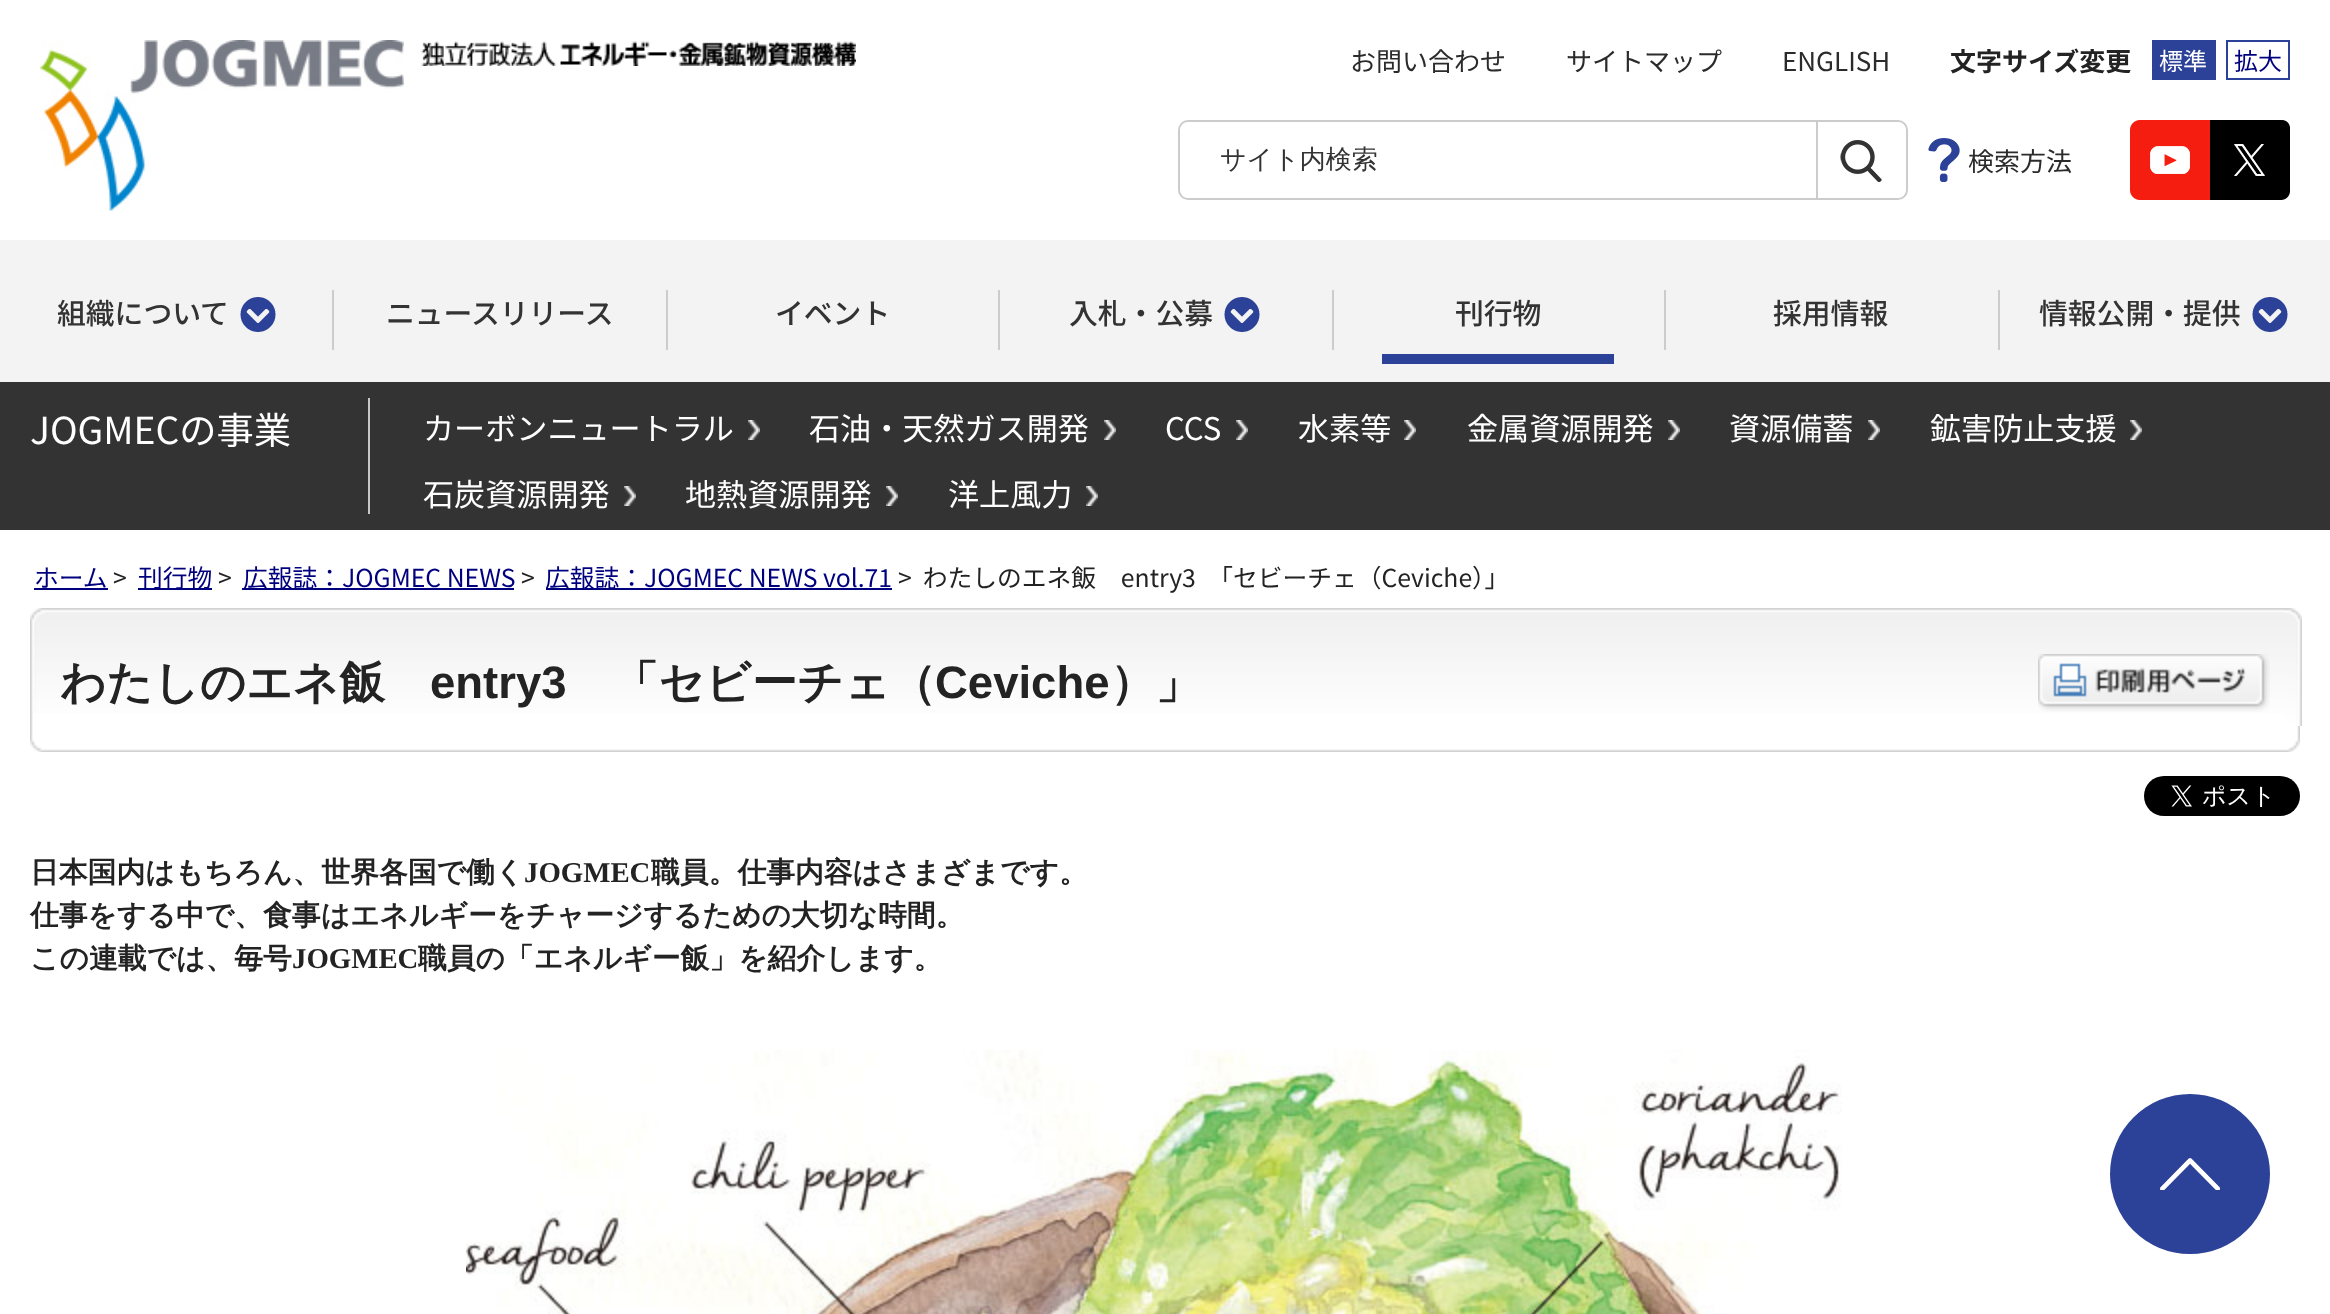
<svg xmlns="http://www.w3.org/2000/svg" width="2330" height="1314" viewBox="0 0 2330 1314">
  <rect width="100%" height="100%" fill="#ffffff"/>
  <image x="40" y="40" width="364" height="171" href="img1.png"/>
  <image x="421" y="41" width="435" height="25" href="img2.png"/>
  <text x="1350" y="71" font-family="Noto Sans JP" font-size="26" fill="#2b2b2b">お問い合わせ</text>
  <text x="1566" y="71" font-family="Noto Sans JP" font-size="26" fill="#2b2b2b">サイトマップ</text>
  <text x="1782" y="71" font-family="Noto Sans JP" font-size="26" fill="#2b2b2b">ENGLISH</text>
  <text x="1950" y="71" font-family="Noto Sans JP" font-size="26" font-weight="bold" fill="#232323">文字サイズ変更</text>
  <rect x="2152" y="40" width="64" height="40" fill="#2c4198"/>
  <text x="2159" y="70" font-family="Noto Sans JP" font-size="24" fill="#ffffff">標準</text>
  <rect x="2227" y="41" width="62" height="38" fill="none" stroke="#2c4198" stroke-width="2"/>
  <text x="2234" y="70" font-family="Noto Sans JP" font-size="24" fill="#00007f">拡大</text>
  <rect x="1179" y="121" width="728" height="78" rx="9" fill="none" stroke="#cccccc" stroke-width="2"/>
  <path d="M1190 122H1816V198H1190C1184.5 198 1180 193.5 1180 188V132C1180 126.5 1184.5 122 1190 122Z" fill="#ffffff"/>
  <text x="1220" y="168" font-family="WenQuanYi Zen Hei" font-size="26" font-weight="500" fill="#333333">サイト内検索</text>
  <rect x="1816" y="122" width="2" height="76" fill="#cccccc"/>
  <path d="M1818 122H1896C1901.5 122 1906 126.5 1906 132V188C1906 193.5 1901.5 198 1896 198H1818Z" fill="#ffffff"/>
  <image x="1840" y="140" width="42" height="42" href="img3.png"/>
  <image x="1928" y="138" width="32" height="44" href="img4.png"/>
  <text x="1968" y="171" font-family="Noto Sans JP" font-size="26" fill="#2b2b2b">検索方法</text>
  <image x="2130" y="120" width="80" height="80" href="img5.png"/>
  <image x="2210" y="120" width="80" height="80" href="img6.png"/>
  <rect x="0" y="240" width="2330" height="142" fill="#f3f3f3"/>
  <text x="57" y="324" font-family="Noto Sans JP" font-size="28.8" font-weight="500" fill="#333333">組織について</text>
  <image x="240" y="297" width="36" height="35" href="img7.png"/>
  <rect x="332" y="290" width="2" height="60" fill="#cccccc"/>
  <text x="386" y="324" font-family="Noto Sans JP" font-size="28.8" font-weight="500" fill="#333333">ニュースリリース</text>
  <rect x="666" y="290" width="2" height="60" fill="#cccccc"/>
  <text x="775" y="324" font-family="Noto Sans JP" font-size="28.8" font-weight="500" fill="#333333">イベント</text>
  <rect x="998" y="290" width="2" height="60" fill="#cccccc"/>
  <text x="1069" y="324" font-family="Noto Sans JP" font-size="28.8" font-weight="500" fill="#333333">入札・公募</text>
  <image x="1224" y="297" width="36" height="35" href="img7.png"/>
  <rect x="1382" y="354" width="232" height="10" fill="#2c4198"/>
  <rect x="1332" y="290" width="2" height="60" fill="#cccccc"/>
  <text x="1455" y="324" font-family="Noto Sans JP" font-size="28.8" font-weight="500" fill="#333333">刊行物</text>
  <rect x="1664" y="290" width="2" height="60" fill="#cccccc"/>
  <text x="1773" y="324" font-family="Noto Sans JP" font-size="28.8" font-weight="500" fill="#333333">採用情報</text>
  <rect x="1998" y="290" width="2" height="60" fill="#cccccc"/>
  <text x="2039" y="324" font-family="Noto Sans JP" font-size="28.8" font-weight="500" fill="#333333">情報公開・提供</text>
  <image x="2252" y="297" width="36" height="35" href="img7.png"/>
  <rect x="0" y="382" width="2330" height="148" fill="#333333"/>
  <rect x="368" y="398" width="2" height="116" fill="#c7c7c7"/>
  <text x="30" y="444" font-family="Noto Sans JP" font-size="37.25" fill="#ffffff">JOGMECの事業</text>
  <image x="748" y="420" width="12" height="20" href="img8.png"/>
  <text x="423" y="440" font-family="Noto Sans JP" font-size="31.1" fill="#ffffff">カーボンニュートラル</text>
  <image x="1104" y="420" width="12" height="20" href="img8.png"/>
  <text x="809" y="440" font-family="Noto Sans JP" font-size="31.1" fill="#ffffff">石油・天然ガス開発</text>
  <image x="1236" y="420" width="12" height="20" href="img8.png"/>
  <text x="1165" y="440" font-family="Noto Sans JP" font-size="31.1" fill="#ffffff">CCS</text>
  <image x="1404" y="420" width="12" height="20" href="img8.png"/>
  <text x="1298" y="440" font-family="Noto Sans JP" font-size="31.1" fill="#ffffff">水素等</text>
  <image x="1668" y="420" width="12" height="20" href="img8.png"/>
  <text x="1467" y="440" font-family="Noto Sans JP" font-size="31.1" fill="#ffffff">金属資源開発</text>
  <image x="1868" y="420" width="12" height="20" href="img8.png"/>
  <text x="1729" y="440" font-family="Noto Sans JP" font-size="31.1" fill="#ffffff">資源備蓄</text>
  <image x="2130" y="420" width="12" height="20" href="img8.png"/>
  <text x="1930" y="440" font-family="Noto Sans JP" font-size="31.1" fill="#ffffff">鉱害防止支援</text>
  <image x="624" y="486" width="12" height="20" href="img8.png"/>
  <text x="423" y="506" font-family="Noto Sans JP" font-size="31.1" fill="#ffffff">石炭資源開発</text>
  <image x="886" y="486" width="12" height="20" href="img8.png"/>
  <text x="685" y="506" font-family="Noto Sans JP" font-size="31.1" fill="#ffffff">地熱資源開発</text>
  <image x="1086" y="486" width="12" height="20" href="img8.png"/>
  <text x="948" y="506" font-family="Noto Sans JP" font-size="31.1" fill="#ffffff">洋上風力</text>
  <text x="34" y="587" font-family="Noto Sans JP" font-size="24.75" fill="#00007f">ホーム</text>
  <rect x="34" y="588" width="74" height="2" fill="#00007f"/>
  <text x="113" y="587" font-family="Noto Sans JP" font-size="24.75" fill="#232323">&gt;</text>
  <rect x="138" y="588" width="74" height="2" fill="#00007f"/>
  <text x="138" y="587" font-family="Noto Sans JP" font-size="24.75" fill="#00007f">刊行物</text>
  <text x="218" y="587" font-family="Noto Sans JP" font-size="24.75" fill="#232323">&gt;</text>
  <rect x="242" y="588" width="272" height="2" fill="#00007f"/>
  <text x="243" y="587" font-family="Noto Sans JP" font-size="24.75" fill="#00007f">広報誌：JOGMEC NEWS</text>
  <text x="521" y="587" font-family="Noto Sans JP" font-size="24.75" fill="#232323">&gt;</text>
  <rect x="546" y="588" width="346" height="2" fill="#00007f"/>
  <text x="545" y="587" font-family="Noto Sans JP" font-size="24.75" fill="#00007f">広報誌：JOGMEC NEWS vol.71</text>
  <text x="898" y="587" font-family="Noto Sans JP" font-size="24.75" fill="#232323" xml:space="preserve">&gt;  わたしのエネ飯　entry3　「セビーチェ（Ceviche）」</text>
  <image x="42" y="713" width="2258" height="39" href="img9.png"/>
  <image x="30" y="713" width="12" height="39" href="img10.png"/>
  <image x="30" y="608" width="2254" height="105" href="img11.png"/>
  <text x="60" y="698" font-family="WenQuanYi Zen Hei" font-size="45.5" font-weight="bold" fill="#232323">わたしのエネ飯</text>
  <text x="430" y="698" font-family="Liberation Sans" font-size="45.5" font-weight="bold" fill="#232323">entry3</text>
  <text x="613" y="698" font-family="WenQuanYi Zen Hei" font-size="45.5" font-weight="bold" fill="#232323">「セビーチェ（</text>
  <text x="935" y="698" font-family="Liberation Sans" font-size="45.5" font-weight="bold" fill="#232323">Ceviche</text>
  <text x="1110" y="698" font-family="WenQuanYi Zen Hei" font-size="45.5" font-weight="bold" fill="#232323">）」</text>
  <image x="2284" y="608" width="18" height="118" href="img12.png"/>
  <image x="2038" y="654" width="232" height="58" href="img13.png"/>
  <image x="2144" y="776" width="156" height="40" href="img14.png"/>
  <text x="30" y="882" font-family="WenQuanYi Zen Hei" font-size="28.8" font-weight="bold" fill="#232323">日本国内はもちろん、世界各国で働く</text>
  <text x="524" y="882" font-family="Liberation Serif" font-size="28.8" font-weight="bold" fill="#232323">JOGMEC</text>
  <text x="651" y="882" font-family="WenQuanYi Zen Hei" font-size="28.8" font-weight="bold" fill="#232323">職員。仕事内容はさまざまです。</text>
  <text x="30" y="925" font-family="WenQuanYi Zen Hei" font-size="28.8" font-weight="bold" fill="#232323">仕事をする中で、食事はエネルギーをチャージするための大切な時間。</text>
  <text x="30" y="968" font-family="WenQuanYi Zen Hei" font-size="28.8" font-weight="bold" fill="#232323">この連載では、毎号</text>
  <text x="292" y="968" font-family="Liberation Serif" font-size="28.8" font-weight="bold" fill="#232323">JOGMEC</text>
  <text x="418" y="968" font-family="WenQuanYi Zen Hei" font-size="28.8" font-weight="bold" fill="#232323">職員の「エネルギー飯」を紹介します。</text>
  <image x="466" y="1050" width="1376" height="264" href="img15.png"/>
  <circle cx="2190" cy="1174" r="80" fill="#2c4198"/>
  <image x="2160" y="1158" width="60" height="32" href="img16.png"/>
</svg>
